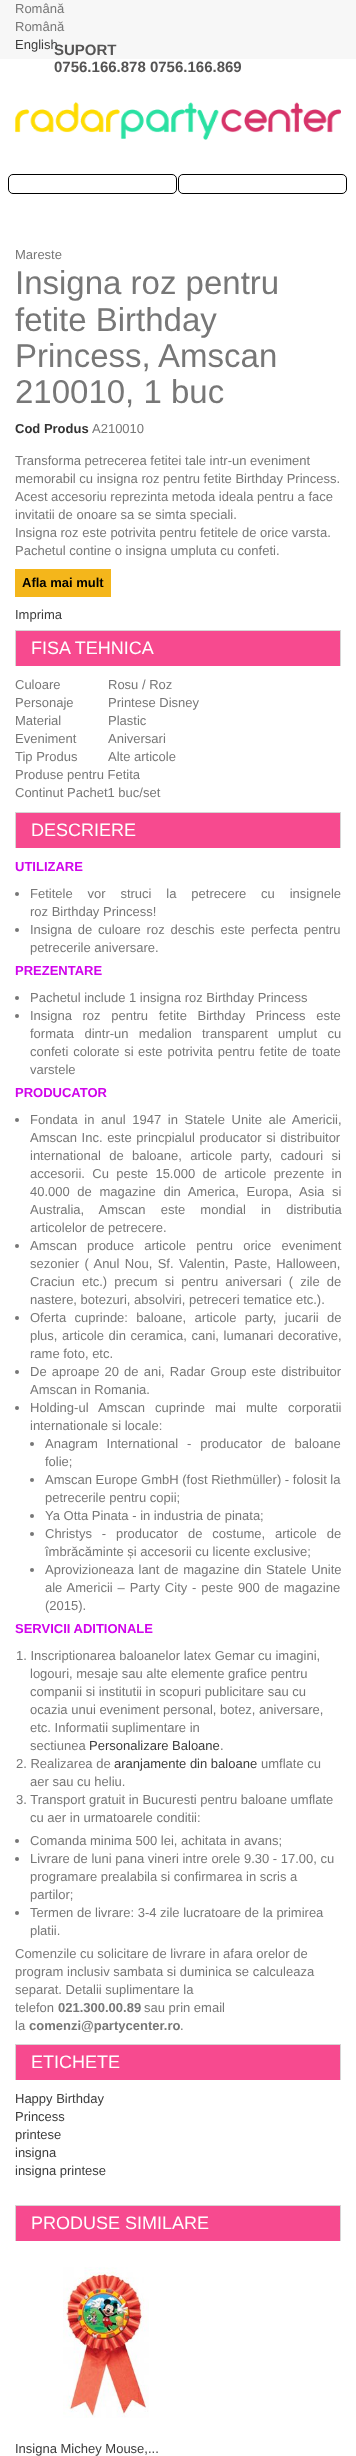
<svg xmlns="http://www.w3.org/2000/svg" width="356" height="2456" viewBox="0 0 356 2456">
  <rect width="100%" height="100%" fill="#ffffff"/>
  <rect x="0" y="0" width="356" height="59" fill="#f7f7f7"/>
  <text x="15" y="13" font-family="Liberation Sans" font-size="13" fill="#777777">Română</text>
  <text x="15" y="31" font-family="Liberation Sans" font-size="13" fill="#777777">Română</text>
  <text x="15" y="49" font-family="Liberation Sans" font-size="13" fill="#3c3c3c">English</text>
  <text x="54" y="55" font-family="Liberation Sans" font-size="15" font-weight="bold" fill="#555454">SUPORT</text>
  <text x="54" y="72" font-family="Liberation Sans" font-size="15" font-weight="bold" fill="#555454">0756.166.878 0756.166.869</text>
  <rect x="8.5" y="174.5" width="168" height="19" rx="4.5" fill="none" stroke="#000000"/>
  <rect x="178.5" y="174.5" width="168" height="19" rx="4.5" fill="none" stroke="#000000"/>
  <image x="15" y="102" width="326" height="38" href="img1.png"/>
  <text x="15" y="259" font-family="Liberation Sans" font-size="13" fill="#777777">Mareste</text>
  <text x="15" y="294" font-family="Liberation Sans" font-size="33" fill="#777777">Insigna roz pentru</text>
  <text x="15" y="331" font-family="Liberation Sans" font-size="33" fill="#777777">fetite Birthday</text>
  <text x="15" y="367" font-family="Liberation Sans" font-size="33" fill="#777777">Princess, Amscan</text>
  <text x="15" y="403" font-family="Liberation Sans" font-size="33" fill="#777777">210010, 1 buc</text>
  <text x="15" y="433" font-family="Liberation Sans" font-size="13" font-weight="bold" fill="#333333">Cod Produs</text>
  <text x="92" y="433" font-family="Liberation Sans" font-size="13" fill="#777777">A210010</text>
  <text x="15" y="465" font-family="Liberation Sans" font-size="13" fill="#777777">Transforma petrecerea fetitei tale intr-un eveniment</text>
  <text x="15" y="483" font-family="Liberation Sans" font-size="13" fill="#777777">memorabil cu insigna roz pentru fetite Birthday Princess.</text>
  <text x="15" y="501" font-family="Liberation Sans" font-size="13" fill="#777777">Acest accesoriu reprezinta metoda ideala pentru a face</text>
  <text x="15" y="519" font-family="Liberation Sans" font-size="13" fill="#777777">invitatii de onoare sa se simta speciali.</text>
  <text x="15" y="537" font-family="Liberation Sans" font-size="13" fill="#777777">Insigna roz este potrivita pentru fetitele de orice varsta.</text>
  <text x="15" y="555" font-family="Liberation Sans" font-size="13" fill="#777777">Pachetul contine o insigna umpluta cu confeti.</text>
  <rect x="15" y="569" width="96" height="28" fill="#f4b61b"/>
  <text x="22" y="587" font-family="Liberation Sans" font-size="13" font-weight="bold" fill="#000000">Afla mai mult</text>
  <text x="15" y="619" font-family="Liberation Sans" font-size="13" fill="#3c3c3c">Imprima</text>
  <rect x="16" y="631" width="324" height="35" fill="#f74a8f"/>
  <rect x="15" y="630" width="326" height="1" fill="#d6d4d4"/>
  <rect x="340" y="630" width="1" height="36" fill="#d6d4d4"/>
  <rect x="15" y="630" width="1" height="36" fill="#d6d4d4"/>
  <text x="31" y="654" font-family="Liberation Sans" font-size="18" fill="#ffffff">FISA TEHNICA</text>
  <text x="15" y="689" font-family="Liberation Sans" font-size="13" fill="#777777">Culoare</text>
  <text x="108" y="689" font-family="Liberation Sans" font-size="13" fill="#777777">Rosu / Roz</text>
  <text x="15" y="707" font-family="Liberation Sans" font-size="13" fill="#777777">Personaje</text>
  <text x="108" y="707" font-family="Liberation Sans" font-size="13" fill="#777777">Printese Disney</text>
  <text x="15" y="725" font-family="Liberation Sans" font-size="13" fill="#777777">Material</text>
  <text x="108" y="725" font-family="Liberation Sans" font-size="13" fill="#777777">Plastic</text>
  <text x="15" y="743" font-family="Liberation Sans" font-size="13" fill="#777777">Eveniment</text>
  <text x="108" y="743" font-family="Liberation Sans" font-size="13" fill="#777777">Aniversari</text>
  <text x="15" y="761" font-family="Liberation Sans" font-size="13" fill="#777777">Tip Produs</text>
  <text x="108" y="761" font-family="Liberation Sans" font-size="13" fill="#777777">Alte articole</text>
  <text x="15" y="779" font-family="Liberation Sans" font-size="13" fill="#777777">Produse pentru Fetita</text>
  <text x="15" y="797" font-family="Liberation Sans" font-size="13" fill="#777777">Continut Pachet1 buc/set</text>
  <rect x="16" y="813" width="324" height="35" fill="#f74a8f"/>
  <rect x="15" y="812" width="326" height="1" fill="#d6d4d4"/>
  <rect x="340" y="812" width="1" height="36" fill="#d6d4d4"/>
  <rect x="15" y="812" width="1" height="36" fill="#d6d4d4"/>
  <text x="31" y="836" font-family="Liberation Sans" font-size="18" fill="#ffffff">DESCRIERE</text>
  <text x="15" y="871" font-family="Liberation Sans" font-size="13" font-weight="bold" fill="#d004eb">UTILIZARE</text>
  <circle cx="17" cy="894" r="2" fill="#777777"/>
  <text x="30" y="898" word-spacing="11.25" font-family="Liberation Sans" font-size="13" fill="#777777">Fetitele vor struci la petrecere cu insignele</text>
  <text x="30" y="916" font-family="Liberation Sans" font-size="13" fill="#777777">roz Birthday Princess!</text>
  <circle cx="17" cy="930" r="2" fill="#777777"/>
  <text x="30" y="934" word-spacing="2.25" font-family="Liberation Sans" font-size="13" fill="#777777">Insigna de culoare roz deschis este perfecta pentru</text>
  <text x="30" y="952" font-family="Liberation Sans" font-size="13" fill="#777777">petrecerile aniversare.</text>
  <text x="15" y="975" font-family="Liberation Sans" font-size="13" font-weight="bold" fill="#d004eb">PREZENTARE</text>
  <circle cx="17" cy="998" r="2" fill="#777777"/>
  <text x="30" y="1002" font-family="Liberation Sans" font-size="13" fill="#777777">Pachetul include 1 insigna roz Birthday Princess</text>
  <circle cx="17" cy="1016" r="2" fill="#777777"/>
  <text x="30" y="1020" word-spacing="7" font-family="Liberation Sans" font-size="13" fill="#777777">Insigna roz pentru fetite Birthday Princess este</text>
  <text x="30" y="1038" word-spacing="6.75" font-family="Liberation Sans" font-size="13" fill="#777777">formata dintr-un medalion transparent umplut cu</text>
  <text x="30" y="1056" word-spacing="1.25" font-family="Liberation Sans" font-size="13" fill="#777777">confeti colorate si</text>
  <text x="138" y="1056" word-spacing="1.25" font-family="Liberation Sans" font-size="13" fill="#777777">este potrivita pentru fetite de toate</text>
  <text x="30" y="1074" font-family="Liberation Sans" font-size="13" fill="#777777">varstele</text>
  <text x="15" y="1097" font-family="Liberation Sans" font-size="13" font-weight="bold" fill="#d004eb">PRODUCATOR</text>
  <circle cx="17" cy="1120" r="2" fill="#777777"/>
  <text x="30" y="1124" word-spacing="3" font-family="Liberation Sans" font-size="13" fill="#777777">Fondata in anul 1947 in Statele Unite ale Americii,</text>
  <text x="30" y="1142" word-spacing="1" font-family="Liberation Sans" font-size="13" fill="#777777">Amscan Inc. este princpialul producator si distribuitor</text>
  <text x="30" y="1160" word-spacing="4.75" font-family="Liberation Sans" font-size="13" fill="#777777">international de baloane, articole party, cadouri si</text>
  <text x="30" y="1178" word-spacing="3.75" font-family="Liberation Sans" font-size="13" fill="#777777">accesorii. Cu peste 15.000 de articole prezente in</text>
  <text x="30" y="1196" word-spacing="4" font-family="Liberation Sans" font-size="13" fill="#777777">40.000 de magazine din America, Europa, Asia si</text>
  <text x="30" y="1214" word-spacing="11.5" font-family="Liberation Sans" font-size="13" fill="#777777">Australia, Amscan este mondial in distributia</text>
  <text x="30" y="1232" font-family="Liberation Sans" font-size="13" fill="#777777">articolelor de petrecere.</text>
  <circle cx="17" cy="1246" r="2" fill="#777777"/>
  <text x="30" y="1250" word-spacing="6.5" font-family="Liberation Sans" font-size="13" fill="#777777">Amscan produce articole pentru orice eveniment</text>
  <text x="30" y="1268" word-spacing="1.75" font-family="Liberation Sans" font-size="13" fill="#777777">sezonier ( Anul Nou, Sf. Valentin, Paste, Halloween,</text>
  <text x="30" y="1286" word-spacing="3.5" font-family="Liberation Sans" font-size="13" fill="#777777">Craciun etc.) precum si pentru aniversari ( zile de</text>
  <text x="30" y="1304" font-family="Liberation Sans" font-size="13" fill="#777777">nastere, botezuri, absolviri, petreceri tematice etc.).</text>
  <circle cx="17" cy="1318" r="2" fill="#777777"/>
  <text x="30" y="1322" word-spacing="4.75" font-family="Liberation Sans" font-size="13" fill="#777777">Oferta cuprinde: baloane, articole party, jucarii de</text>
  <text x="30" y="1340" word-spacing="1" font-family="Liberation Sans" font-size="13" fill="#777777">plus, articole din ceramica, cani, lumanari decorative,</text>
  <text x="30" y="1358" font-family="Liberation Sans" font-size="13" fill="#777777">rame foto, etc.</text>
  <circle cx="17" cy="1372" r="2" fill="#777777"/>
  <text x="30" y="1376" word-spacing="1.5" font-family="Liberation Sans" font-size="13" fill="#777777">De aproape 20 de ani, Radar Group este distribuitor</text>
  <text x="30" y="1394" font-family="Liberation Sans" font-size="13" fill="#777777">Amscan in Romania.</text>
  <circle cx="17" cy="1408" r="2" fill="#777777"/>
  <text x="30" y="1412" word-spacing="6.5" font-family="Liberation Sans" font-size="13" fill="#777777">Holding-ul Amscan cuprinde mai multe corporatii</text>
  <text x="30" y="1430" font-family="Liberation Sans" font-size="13" fill="#777777">internationale si locale:</text>
  <circle cx="32" cy="1444" r="2" fill="#777777"/>
  <text x="45" y="1448" word-spacing="5.25" font-family="Liberation Sans" font-size="13" fill="#777777">Anagram International - producator de baloane</text>
  <text x="45" y="1466" font-family="Liberation Sans" font-size="13" fill="#777777">folie;</text>
  <circle cx="32" cy="1480" r="2" fill="#777777"/>
  <text x="45" y="1484" font-family="Liberation Sans" font-size="13" fill="#777777">Amscan Europe GmbH (fost Riethmüller) - folosit la</text>
  <text x="45" y="1502" font-family="Liberation Sans" font-size="13" fill="#777777">petrecerile pentru copii;</text>
  <circle cx="32" cy="1516" r="2" fill="#777777"/>
  <text x="45" y="1520" font-family="Liberation Sans" font-size="13" fill="#777777">Ya Otta Pinata - in industria de pinata;</text>
  <circle cx="32" cy="1534" r="2" fill="#777777"/>
  <text x="45" y="1538" word-spacing="6.25" font-family="Liberation Sans" font-size="13" fill="#777777">Christys - producator de costume, articole de</text>
  <text x="45" y="1556" font-family="Liberation Sans" font-size="13" fill="#777777">îmbrăcăminte și accesorii cu licente exclusive;</text>
  <circle cx="32" cy="1570" r="2" fill="#777777"/>
  <text x="45" y="1574" word-spacing="1" font-family="Liberation Sans" font-size="13" fill="#777777">Aprovizioneaza lant de magazine din Statele Unite</text>
  <text x="45" y="1592" word-spacing="1.25" font-family="Liberation Sans" font-size="13" fill="#777777">ale Americii – Party City - peste 900 de magazine</text>
  <text x="45" y="1610" font-family="Liberation Sans" font-size="13" fill="#777777">(2015).</text>
  <text x="15" y="1633" font-family="Liberation Sans" font-size="13" font-weight="bold" fill="#d004eb">SERVICII ADITIONALE</text>
  <text x="16" y="1660" font-family="Liberation Sans" font-size="13" fill="#777777">1. Inscriptionarea baloanelor latex Gemar cu imagini,</text>
  <text x="30" y="1678" font-family="Liberation Sans" font-size="13" fill="#777777">logouri, mesaje sau alte elemente grafice pentru</text>
  <text x="30" y="1696" font-family="Liberation Sans" font-size="13" fill="#777777">companii si institutii in scopuri publicitare sau cu</text>
  <text x="30" y="1714" font-family="Liberation Sans" font-size="13" fill="#777777">ocazia unui eveniment personal, botez, aniversare,</text>
  <text x="30" y="1732" font-family="Liberation Sans" font-size="13" fill="#777777">etc. Informatii suplimentare in</text>
  <text x="30" y="1750" font-family="Liberation Sans" font-size="13" fill="#777777">sectiunea</text>
  <text x="89" y="1750" font-family="Liberation Sans" font-size="13" fill="#3c3c3c">Personalizare Baloane</text>
  <text x="220" y="1750" font-family="Liberation Sans" font-size="13" fill="#777777">.</text>
  <text x="16" y="1768" font-family="Liberation Sans" font-size="13" fill="#777777">2. Realizarea de</text>
  <text x="114" y="1768" font-family="Liberation Sans" font-size="13" fill="#3c3c3c">aranjamente din baloane</text>
  <text x="261" y="1768" font-family="Liberation Sans" font-size="13" fill="#777777">umflate cu</text>
  <text x="30" y="1786" font-family="Liberation Sans" font-size="13" fill="#777777">aer sau cu heliu.</text>
  <text x="16" y="1804" font-family="Liberation Sans" font-size="13" fill="#777777">3. Transport gratuit in Bucuresti pentru baloane umflate</text>
  <text x="30" y="1822" font-family="Liberation Sans" font-size="13" fill="#777777">cu aer in urmatoarele conditii:</text>
  <circle cx="17" cy="1841" r="2" fill="#777777"/>
  <text x="30" y="1845" font-family="Liberation Sans" font-size="13" fill="#777777">Comanda minima 500 lei, achitata in avans;</text>
  <circle cx="17" cy="1859" r="2" fill="#777777"/>
  <text x="30" y="1863" font-family="Liberation Sans" font-size="13" fill="#777777">Livrare de luni pana vineri intre orele 9.30 - 17.00, cu</text>
  <text x="30" y="1881" font-family="Liberation Sans" font-size="13" fill="#777777">programare prealabila si confirmarea in scris a</text>
  <text x="30" y="1899" font-family="Liberation Sans" font-size="13" fill="#777777">partilor;</text>
  <circle cx="17" cy="1913" r="2" fill="#777777"/>
  <text x="30" y="1917" font-family="Liberation Sans" font-size="13" fill="#777777">Termen de livrare: 3-4 zile lucratoare de la primirea</text>
  <text x="30" y="1935" font-family="Liberation Sans" font-size="13" fill="#777777">platii.</text>
  <text x="15" y="1958" font-family="Liberation Sans" font-size="13" fill="#777777">Comenzile cu solicitare de livrare in afara orelor de</text>
  <text x="15" y="1976" font-family="Liberation Sans" font-size="13" fill="#777777">program inclusiv sambata si duminica se calculeaza</text>
  <text x="15" y="1994" font-family="Liberation Sans" font-size="13" fill="#777777">separat. Detalii suplimentare la</text>
  <text x="15" y="2012" font-family="Liberation Sans" font-size="13" fill="#777777">telefon</text>
  <text x="58" y="2012" font-family="Liberation Sans" font-size="13" font-weight="bold" fill="#777777">021.300.00.89</text>
  <text x="144" y="2012" font-family="Liberation Sans" font-size="13" fill="#777777">sau prin email</text>
  <text x="15" y="2030" font-family="Liberation Sans" font-size="13" fill="#777777">la</text>
  <text x="29" y="2030" font-family="Liberation Sans" font-size="13" font-weight="bold" fill="#777777">comenzi@partycenter.ro</text>
  <text x="180" y="2030" font-family="Liberation Sans" font-size="13" fill="#777777">.</text>
  <rect x="16" y="2045" width="324" height="35" fill="#f74a8f"/>
  <rect x="15" y="2044" width="326" height="1" fill="#d6d4d4"/>
  <rect x="340" y="2044" width="1" height="36" fill="#d6d4d4"/>
  <rect x="15" y="2044" width="1" height="36" fill="#d6d4d4"/>
  <text x="31" y="2068" font-family="Liberation Sans" font-size="18" fill="#ffffff">ETICHETE</text>
  <text x="15" y="2103" font-family="Liberation Sans" font-size="13" fill="#3c3c3c">Happy Birthday</text>
  <text x="15" y="2121" font-family="Liberation Sans" font-size="13" fill="#3c3c3c">Princess</text>
  <text x="15" y="2139" font-family="Liberation Sans" font-size="13" fill="#3c3c3c">printese</text>
  <text x="15" y="2157" font-family="Liberation Sans" font-size="13" fill="#3c3c3c">insigna</text>
  <text x="15" y="2175" font-family="Liberation Sans" font-size="13" fill="#3c3c3c">insigna printese</text>
  <rect x="16" y="2206" width="324" height="35" fill="#f74a8f"/>
  <rect x="15" y="2205" width="326" height="1" fill="#d6d4d4"/>
  <rect x="340" y="2205" width="1" height="36" fill="#d6d4d4"/>
  <rect x="15" y="2205" width="1" height="36" fill="#d6d4d4"/>
  <text x="31" y="2229" font-family="Liberation Sans" font-size="18" fill="#ffffff">PRODUSE SIMILARE</text>
  <image x="63" y="2267" width="86" height="151" href="img2.png"/>
  <text x="15" y="2453" font-family="Liberation Sans" font-size="13" fill="#3c3c3c">Insigna Michey Mouse,...</text>
</svg>
